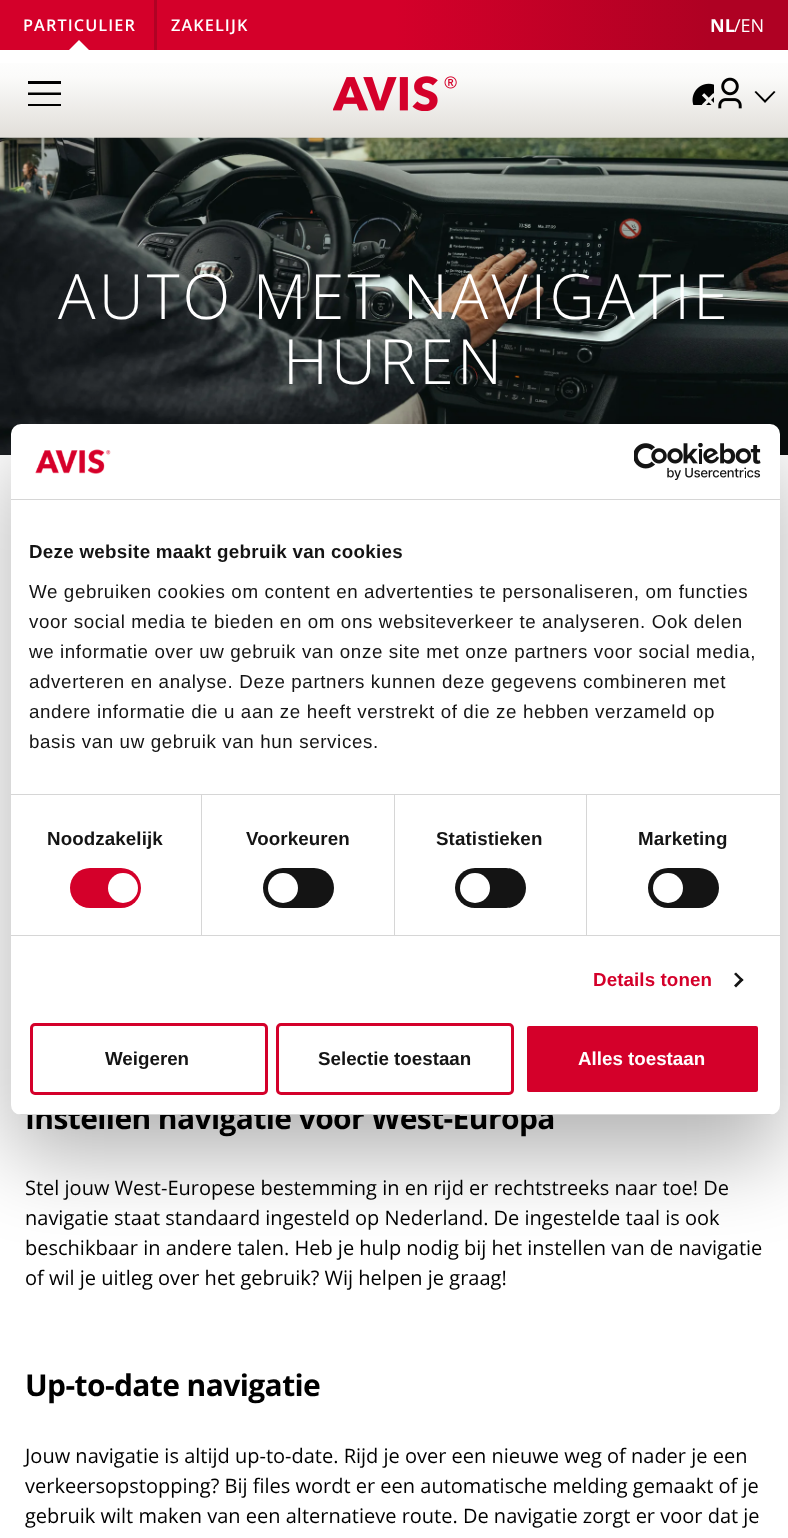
<svg xmlns="http://www.w3.org/2000/svg" width="788" height="1538" viewBox="0 0 788 1538">
  <defs>
    <linearGradient id="g1" gradientUnits="userSpaceOnUse" x1="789" y1="25" x2="0" y2="25"><stop offset="0.1" stop-color="#af0123"/><stop offset="0.5" stop-color="#d4002a"/></linearGradient>
    <linearGradient id="g2" gradientUnits="userSpaceOnUse" x1="394" y1="50" x2="394" y2="138"><stop offset="0" stop-color="#ffffff"/><stop offset="0.3" stop-color="#fbfbfa"/><stop offset="1" stop-color="#e1ded9"/></linearGradient>
    <clipPath id="clip1"><rect x="28" y="81" width="33" height="25"/></clipPath>
    <filter id="blur1" x="-50%" y="-200%" width="200%" height="500%"><feGaussianBlur stdDeviation="42.5"/></filter>
    <clipPath id="clip2"><rect x="11" y="424" width="769" height="691" rx="10"/></clipPath>
  </defs>
  <rect width="100%" height="100%" fill="#ffffff"/>
  <rect x="0" y="0" width="788" height="50" fill="url(#g1)"/>
  <text x="23" y="31" font-family="Open Sans" font-size="16.25" font-weight="600" letter-spacing="1.1" fill="#ffffff">PARTICULIER</text>
  <path d="M89 50H69L79 40Z" fill="#ffffff"/>
  <rect x="154" y="0" width="3" height="50" fill="#b00224"/>
  <text x="171" y="31" font-family="Open Sans" font-size="16.25" font-weight="600" letter-spacing="1.1" fill="#ffffff">ZAKELIJK</text>
  <text x="710" y="32" font-family="Open Sans" font-size="18" font-weight="bold" fill="#ffffff">NL</text>
  <text x="734" y="32" font-family="Open Sans" font-size="18" fill="#ffffff">/EN</text>
  <rect x="0" y="63" width="788" height="75" fill="url(#g2)"/>
  <g clip-path="url(#clip1)">
    <path d="M27.5 81H61V84H27.5ZM27.5 92.5H61V95H27.5ZM27.5 104H61V106H27.5Z" fill="#000000"/>
  </g>
  <image x="333" y="76" width="124" height="35" href="img1.png"/>
  <image x="692" y="83" width="22" height="22" href="img2.png"/>
  <image x="718" y="77" width="24" height="32" href="img3.png"/>
  <path d="M774 91L765 100L756 91L754.5 92L765 103L775.5 92Z" fill="#000000" fill-rule="evenodd"/>
  <image x="0" y="137" width="788" height="318" href="img4.png"/>
  <text x="58" y="319" font-family="Open Sans" font-size="62.5" font-weight="300" letter-spacing="3.1" fill="#ffffff">AUTO MET NAVIGATIE</text>
  <text x="283" y="384" font-family="Open Sans" font-size="62.5" font-weight="300" letter-spacing="3.1" fill="#ffffff">HUREN</text>
  <text x="25" y="1129" font-family="Open Sans" font-size="30" font-weight="bold" letter-spacing="-0.6" fill="#000000">Instellen navigatie voor West-Europa</text>
  <text x="25" y="1195" font-family="Open Sans" font-size="20" fill="#000000">Stel jouw West-Europese bestemming in en rijd er rechtstreeks naar toe! De</text>
  <text x="25" y="1225" font-family="Open Sans" font-size="20" fill="#000000">navigatie staat standaard ingesteld op Nederland. De ingestelde taal is ook</text>
  <text x="25" y="1255" font-family="Open Sans" font-size="20" fill="#000000">beschikbaar in andere talen. Heb je hulp nodig bij het instellen van de navigatie</text>
  <text x="25" y="1285" font-family="Open Sans" font-size="20" fill="#000000">of wil je uitleg over het gebruik? Wij helpen je graag!</text>
  <text x="25" y="1396" font-family="Open Sans" font-size="30" font-weight="bold" letter-spacing="-0.6" fill="#000000">Up-to-date navigatie</text>
  <text x="25" y="1463" font-family="Open Sans" font-size="20" fill="#000000">Jouw navigatie is altijd up-to-date. Rijd je over een nieuwe weg of nader je een</text>
  <text x="25" y="1493" font-family="Open Sans" font-size="20" fill="#000000">verkeersopstopping? Bij files wordt er een automatische melding gemaakt of je</text>
  <text x="25" y="1523" font-family="Open Sans" font-size="20" fill="#000000">gebruik wilt maken van een alternatieve route. De navigatie zorgt er voor dat je</text>
  <rect x="11" y="464" width="769" height="691" rx="10" fill="#000000" fill-opacity="0.3" filter="url(#blur1)"/>
  <rect x="11" y="424" width="769" height="691" rx="10" fill="#ffffff"/>
  <rect x="11" y="499" width="769" height="1" fill="#d6d6d6"/>
  <image x="35" y="449" width="76" height="25" href="img5.png"/>
  <image x="634" y="443" width="127" height="37" href="img6.png"/>
  <rect x="11" y="794" width="769" height="1" fill="#d6d6d6"/>
  <text x="29" y="558" font-family="Liberation Sans" font-size="18.75" font-weight="bold" letter-spacing="0.3" fill="#141414">Deze website maakt gebruik van cookies</text>
  <text x="29" y="598" font-family="Liberation Sans" font-size="18.75" letter-spacing="0.62" fill="#141414">We gebruiken cookies om content en advertenties te personaliseren, om functies</text>
  <text x="29" y="628" font-family="Liberation Sans" font-size="18.75" letter-spacing="0.62" fill="#141414">voor social media te bieden en om ons websiteverkeer te analyseren. Ook delen</text>
  <text x="29" y="658" font-family="Liberation Sans" font-size="18.75" letter-spacing="0.62" fill="#141414">we informatie over uw gebruik van onze site met onze partners voor social media,</text>
  <text x="29" y="688" font-family="Liberation Sans" font-size="18.75" letter-spacing="0.62" fill="#141414">adverteren en analyse. Deze partners kunnen deze gegevens combineren met</text>
  <text x="29" y="718" font-family="Liberation Sans" font-size="18.75" letter-spacing="0.62" fill="#141414">andere informatie die u aan ze heeft verstrekt of die ze hebben verzameld op</text>
  <text x="29" y="748" font-family="Liberation Sans" font-size="18.75" letter-spacing="0.62" fill="#141414">basis van uw gebruik van hun services.</text>
  <rect x="11" y="935" width="769" height="1" fill="#d6d6d6"/>
  <rect x="201" y="795" width="1" height="140" fill="#d6d6d6"/>
  <text x="47" y="845" font-family="Liberation Sans" font-size="18.75" font-weight="bold" letter-spacing="0.1" fill="#141414">Noodzakelijk</text>
  <rect x="70" y="868" width="71" height="40" rx="20" fill="#d4002a"/>
  <circle cx="123" cy="888" r="15" fill="#ffffff"/>
  <rect x="394" y="795" width="1" height="140" fill="#d6d6d6"/>
  <text x="246" y="845" font-family="Liberation Sans" font-size="18.75" font-weight="bold" letter-spacing="0.1" fill="#141414">Voorkeuren</text>
  <rect x="263" y="868" width="71" height="40" rx="20" fill="#141414"/>
  <circle cx="283" cy="888" r="15" fill="#ffffff"/>
  <rect x="586" y="795" width="1" height="140" fill="#d6d6d6"/>
  <text x="436" y="845" font-family="Liberation Sans" font-size="18.75" font-weight="bold" letter-spacing="0.1" fill="#141414">Statistieken</text>
  <rect x="455" y="868" width="71" height="40" rx="20" fill="#141414"/>
  <circle cx="475" cy="888" r="15" fill="#ffffff"/>
  <text x="638" y="845" font-family="Liberation Sans" font-size="18.75" font-weight="bold" letter-spacing="0.1" fill="#141414">Marketing</text>
  <rect x="648" y="868" width="71" height="40" rx="20" fill="#141414"/>
  <circle cx="668" cy="888" r="15" fill="#ffffff"/>
  <text x="593" y="986" font-family="Liberation Sans" font-size="18.75" font-weight="bold" letter-spacing="0.1" fill="#d4002a">Details tonen</text>
  <path d="M736 972.5L743.5 980L741.5 981.5L734 974Z" fill="#141414"/>
  <path d="M741.5 978L743.5 980L736 987.5L734 985.5Z" fill="#141414"/>
  <g clip-path="url(#clip2)">
    <rect x="11" y="1114" width="769" height="1" fill="#d6d6d6"/>
  </g>
  <rect x="31.5" y="1024.5" width="235" height="69" rx="3.5" fill="none" stroke="#d4002a" stroke-width="3"/>
  <text x="105" y="1065" font-family="Liberation Sans" font-size="18.75" font-weight="bold" fill="#141414">Weigeren</text>
  <rect x="277.5" y="1024.5" width="235" height="69" rx="3.5" fill="none" stroke="#d4002a" stroke-width="3"/>
  <text x="318" y="1065" font-family="Liberation Sans" font-size="18.75" font-weight="bold" fill="#141414">Selectie toestaan</text>
  <rect x="525.5" y="1024.5" width="234" height="69" rx="3.5" fill="#d4002a" stroke="#ffffff" stroke-width="3"/>
  <text x="578" y="1065" font-family="Liberation Sans" font-size="18.75" font-weight="bold" fill="#ffffff">Alles toestaan</text>
</svg>
